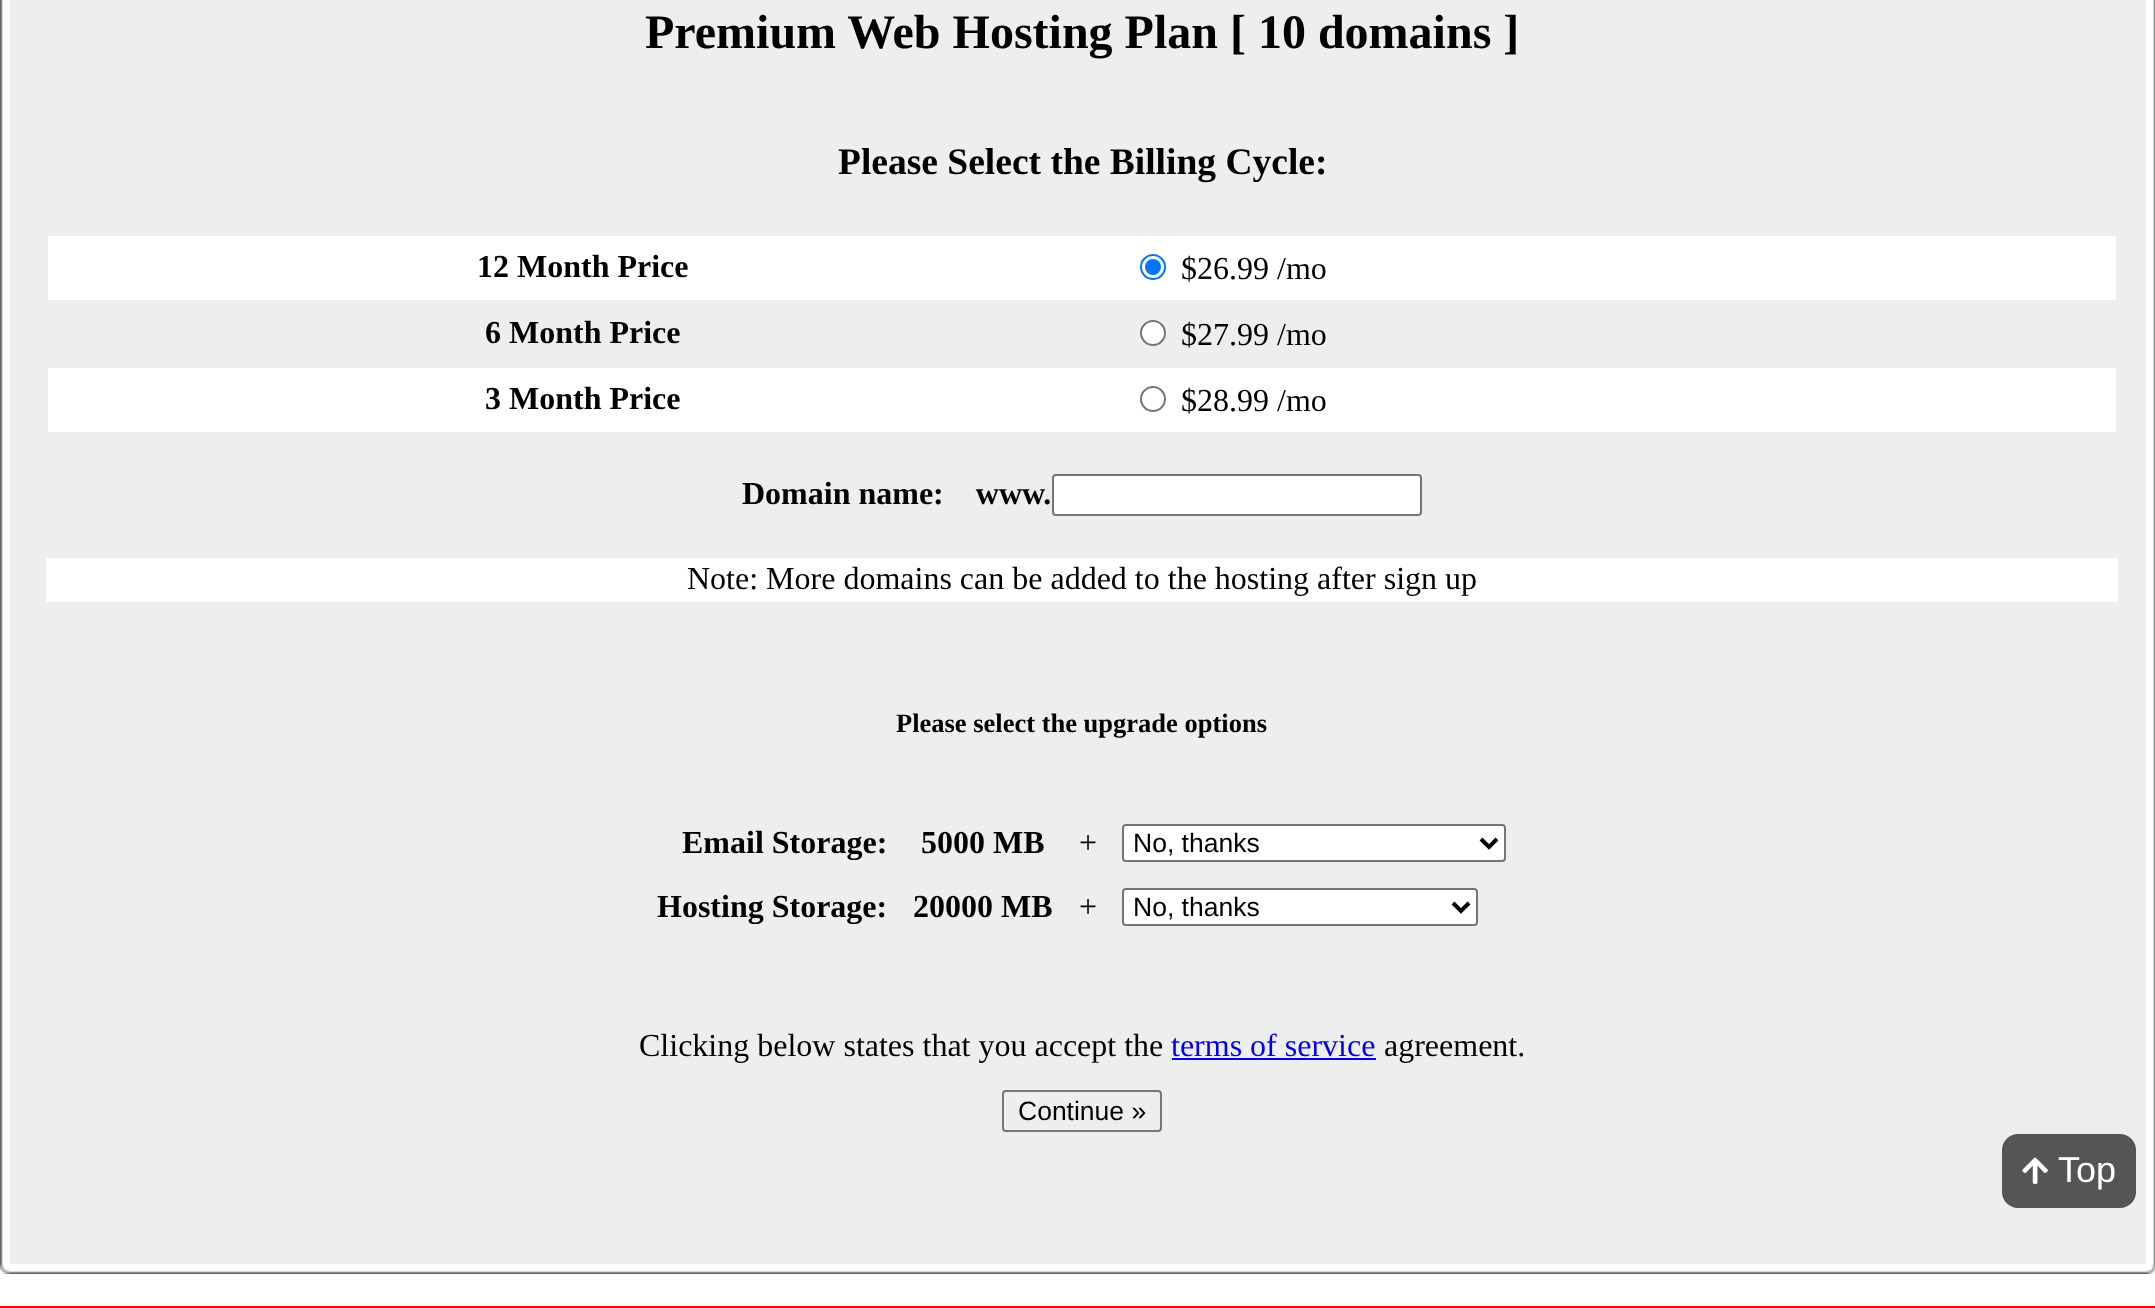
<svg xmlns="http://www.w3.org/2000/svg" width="2155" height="1308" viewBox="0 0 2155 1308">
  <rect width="100%" height="100%" fill="#ffffff"/>
  <rect x="10" y="0" width="2136" height="1264" fill="#eeeeee"/>
  <image x="0" y="0" width="10" height="1264" href="img1.png"/>
  <text x="645" y="48" font-family="Liberation Serif" font-size="48" font-weight="bold" fill="#000000">Premium Web Hosting Plan [ 10 domains ]</text>
  <text x="838" y="174" font-family="Liberation Serif" font-size="37.5" font-weight="bold" fill="#000000">Please Select the Billing Cycle:</text>
  <rect x="48" y="236" width="2068" height="64" fill="#ffffff"/>
  <text x="477" y="277" font-family="Liberation Serif" font-size="32" font-weight="bold" fill="#000000">12 Month Price</text>
  <circle cx="1153" cy="267" r="12" fill="none" stroke="#0075ff" stroke-width="2"/>
  <circle cx="1153" cy="267" r="8" fill="#0075ff"/>
  <text x="1181" y="279" font-family="Liberation Serif" font-size="32" fill="#000000">$26.99 /mo</text>
  <text x="485" y="343" font-family="Liberation Serif" font-size="32" font-weight="bold" fill="#000000">6 Month Price</text>
  <circle cx="1153" cy="333" r="12" fill="#ffffff" stroke="#767676" stroke-width="2"/>
  <text x="1181" y="345" font-family="Liberation Serif" font-size="32" fill="#000000">$27.99 /mo</text>
  <rect x="48" y="368" width="2068" height="64" fill="#ffffff"/>
  <text x="485" y="409" font-family="Liberation Serif" font-size="32" font-weight="bold" fill="#000000">3 Month Price</text>
  <circle cx="1153" cy="399" r="12" fill="none" stroke="#767676" stroke-width="2"/>
  <text x="1181" y="411" font-family="Liberation Serif" font-size="32" fill="#000000">$28.99 /mo</text>
  <text x="742" y="504" font-family="Liberation Serif" font-size="32" font-weight="bold" fill="#000000" xml:space="preserve">Domain name:    www.</text>
  <rect x="1053" y="475" width="368" height="40" rx="3" fill="#ffffff" stroke="#767676" stroke-width="2"/>
  <rect x="46" y="558" width="2072" height="44" fill="#ffffff"/>
  <text x="687" y="589" font-family="Liberation Serif" font-size="32" fill="#000000">Note: More domains can be added to the hosting after sign up</text>
  <text x="896" y="732" font-family="Liberation Serif" font-size="26.5" font-weight="bold" fill="#000000">Please select the upgrade options</text>
  <text x="682" y="853" font-family="Liberation Serif" font-size="32" font-weight="bold" fill="#000000">Email Storage:</text>
  <text x="921" y="853" font-family="Liberation Serif" font-size="32" font-weight="bold" fill="#000000">5000 MB</text>
  <text x="1079" y="853" font-family="Liberation Serif" font-size="32" fill="#000000">+</text>
  <rect x="1123" y="825" width="382" height="36" rx="3" fill="#ffffff" stroke="#767676" stroke-width="2"/>
  <path d="M1481 839L1489 847L1497 839" fill="none" stroke="#000000" stroke-width="4"/>
  <text x="1133" y="852" font-family="Liberation Sans" font-size="26.5" fill="#000000">No, thanks</text>
  <text x="657" y="917" font-family="Liberation Serif" font-size="32" font-weight="bold" fill="#000000">Hosting Storage:</text>
  <text x="913" y="917" font-family="Liberation Serif" font-size="32" font-weight="bold" fill="#000000">20000 MB</text>
  <text x="1079" y="917" font-family="Liberation Serif" font-size="32" fill="#000000">+</text>
  <rect x="1123" y="889" width="354" height="36" rx="3" fill="#ffffff" stroke="#767676" stroke-width="2"/>
  <path d="M1453 903L1461 911L1469 903" fill="none" stroke="#000000" stroke-width="4"/>
  <text x="1133" y="916" font-family="Liberation Sans" font-size="26.5" fill="#000000">No, thanks</text>
  <text x="639" y="1056" font-family="Liberation Serif" font-size="32" fill="#000000">Clicking below states that you accept the</text>
  <text x="1171" y="1056" font-family="Liberation Serif" font-size="32" fill="#0000ee">terms of service</text>
  <text x="1384" y="1056" font-family="Liberation Serif" font-size="32" fill="#000000">agreement.</text>
  <rect x="1172" y="1058" width="204" height="2" fill="#0000ee"/>
  <rect x="1003" y="1091" width="158" height="40" rx="3" fill="none" stroke="#767676" stroke-width="2"/>
  <text x="1018" y="1120" font-family="Liberation Sans" font-size="26.5" fill="#000000">Continue »</text>
  <image x="2146" y="0" width="9" height="1264" href="img2.png"/>
  <image x="0" y="1264" width="10" height="10" href="img3.png"/>
  <image x="10" y="1264" width="2136" height="10" href="img4.png"/>
  <image x="2146" y="1264" width="9" height="10" href="img5.png"/>
  <rect x="2002" y="1134" width="134" height="74" rx="16" fill="#555555"/>
  <image x="2022" y="1157" width="26" height="27" href="img6.png"/>
  <text x="2058" y="1182" font-family="Liberation Sans" font-size="36" fill="#ffffff">Top</text>
  <rect x="-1" y="1307" width="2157" height="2" fill="none" stroke="#ff0000" stroke-width="2"/>
</svg>
